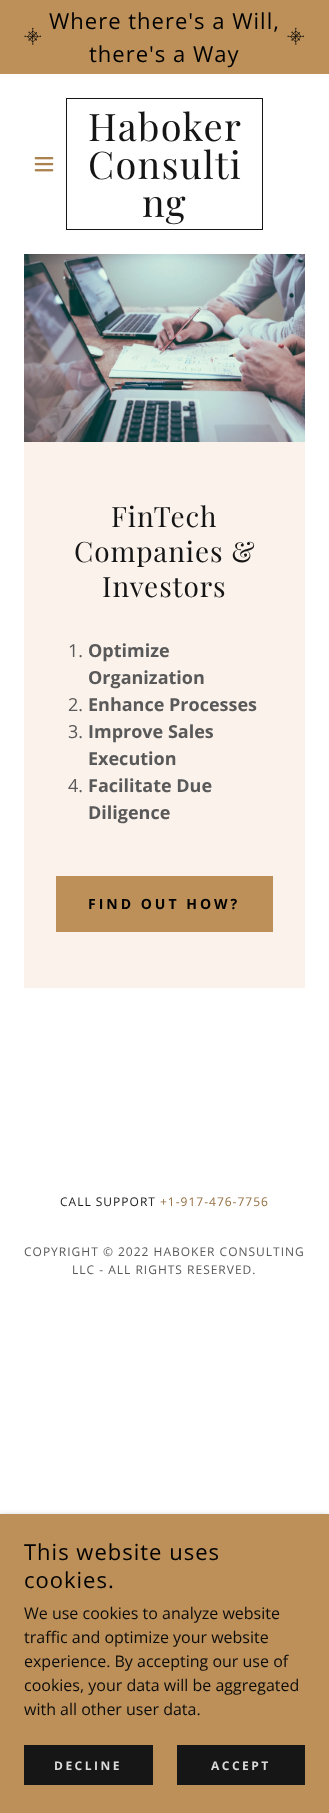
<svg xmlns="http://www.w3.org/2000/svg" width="329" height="1813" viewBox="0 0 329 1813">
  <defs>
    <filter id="blur1" x="-50%" y="-200%" width="200%" height="500%"><feGaussianBlur stdDeviation="3"/></filter>
  </defs>
  <rect width="100%" height="100%" fill="#ffffff"/>
  <rect x="0" y="0" width="329" height="74" fill="#bd9059"/>
  <image x="24" y="27" width="18" height="18" href="img1.png"/>
  <text x="49" y="29" font-family="Open Sans" font-size="22" letter-spacing="1" fill="#000000">Where there's a Will,</text>
  <text x="89" y="62" font-family="Open Sans" font-size="22" letter-spacing="1" fill="#000000">there's a Way</text>
  <image x="287" y="27" width="18" height="18" href="img1.png"/>
  <image x="34" y="157" width="20" height="15" href="img2.png"/>
  <rect x="66.5" y="98.5" width="196" height="131" fill="none" stroke="#151515"/>
  <text x="88" y="141" font-family="Playfair Display" font-size="38" letter-spacing="1.25" fill="#151515">Haboker</text>
  <text x="88" y="179" font-family="Playfair Display" font-size="38" letter-spacing="1.25" fill="#151515">Consulti</text>
  <text x="142" y="217" font-family="Playfair Display" font-size="38" letter-spacing="1.25" fill="#151515">ng</text>
  <image x="24" y="254" width="281" height="188" href="img3.png"/>
  <rect x="24" y="442" width="281" height="546" fill="#fbf2eb"/>
  <text x="111" y="527" font-family="Playfair Display" font-size="28" letter-spacing="0.9" fill="#151515">FinTech</text>
  <text x="74" y="562" font-family="Playfair Display" font-size="28" letter-spacing="0.9" fill="#151515">Companies &amp;</text>
  <text x="102" y="597" font-family="Playfair Display" font-size="28" letter-spacing="0.9" fill="#151515">Investors</text>
  <text x="68" y="657" font-family="Open Sans" font-size="18" fill="#595959">1.</text>
  <text x="88" y="657" font-family="Open Sans" font-size="18" font-weight="bold" fill="#595959">Optimize</text>
  <text x="88" y="684" font-family="Open Sans" font-size="18" font-weight="bold" fill="#595959">Organization</text>
  <text x="68" y="711" font-family="Open Sans" font-size="18" fill="#595959">2.</text>
  <text x="88" y="711" font-family="Open Sans" font-size="18" font-weight="bold" fill="#595959">Enhance Processes</text>
  <text x="68" y="738" font-family="Open Sans" font-size="18" fill="#595959">3.</text>
  <text x="88" y="738" font-family="Open Sans" font-size="18" font-weight="bold" fill="#595959">Improve Sales</text>
  <text x="88" y="765" font-family="Open Sans" font-size="18" font-weight="bold" fill="#595959">Execution</text>
  <text x="68" y="792" font-family="Open Sans" font-size="18" fill="#595959">4.</text>
  <text x="88" y="792" font-family="Open Sans" font-size="18" font-weight="bold" fill="#595959">Facilitate Due</text>
  <text x="88" y="819" font-family="Open Sans" font-size="18" font-weight="bold" fill="#595959">Diligence</text>
  <rect x="56" y="876" width="217" height="56" fill="#bd9059"/>
  <text x="88" y="909" font-family="Open Sans" font-size="14" font-weight="bold" letter-spacing="3" fill="#000000">FIND OUT HOW?</text>
  <text x="60" y="1206" font-family="Open Sans" font-size="12" letter-spacing="1" fill="#1b1b1b">CALL SUPPORT</text>
  <text x="160" y="1206" font-family="Open Sans" font-size="12" letter-spacing="1" fill="#946f43">+1-917-476-7756</text>
  <text x="24" y="1256" font-family="Open Sans" font-size="12" letter-spacing="1" fill="#595959">COPYRIGHT © 2022 HABOKER CONSULTING</text>
  <text x="72" y="1274" font-family="Open Sans" font-size="12" letter-spacing="1" fill="#595959">LLC - ALL RIGHTS RESERVED.</text>
  <rect x="0" y="1516" width="329" height="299" fill="#000000" fill-opacity="0.3" filter="url(#blur1)"/>
  <rect x="0" y="1514" width="329" height="299" fill="#bd9059"/>
  <text x="24" y="1560" font-family="Open Sans" font-size="22" letter-spacing="1" fill="#000000">This website uses</text>
  <text x="24" y="1588" font-family="Open Sans" font-size="22" letter-spacing="1" fill="#000000">cookies.</text>
  <text x="24" y="1619" font-family="Open Sans" font-size="16" fill="#0b0b0a">We use cookies to analyze website</text>
  <text x="24" y="1643" font-family="Open Sans" font-size="16" fill="#0b0b0a">traffic and optimize your website</text>
  <text x="24" y="1667" font-family="Open Sans" font-size="16" fill="#0b0b0a">experience. By accepting our use of</text>
  <text x="24" y="1691" font-family="Open Sans" font-size="16" fill="#0b0b0a">cookies, your data will be aggregated</text>
  <text x="24" y="1715" font-family="Open Sans" font-size="16" fill="#0b0b0a">with all other user data.</text>
  <rect x="24" y="1745" width="129" height="40" fill="#161616"/>
  <text x="54" y="1770" font-family="Open Sans" font-size="12" font-weight="bold" letter-spacing="2.5" fill="#dbdbdb">DECLINE</text>
  <rect x="177" y="1745" width="128" height="40" fill="#161616"/>
  <text x="211" y="1770" font-family="Open Sans" font-size="12" font-weight="bold" letter-spacing="2.5" fill="#dbdbdb">ACCEPT</text>
</svg>
